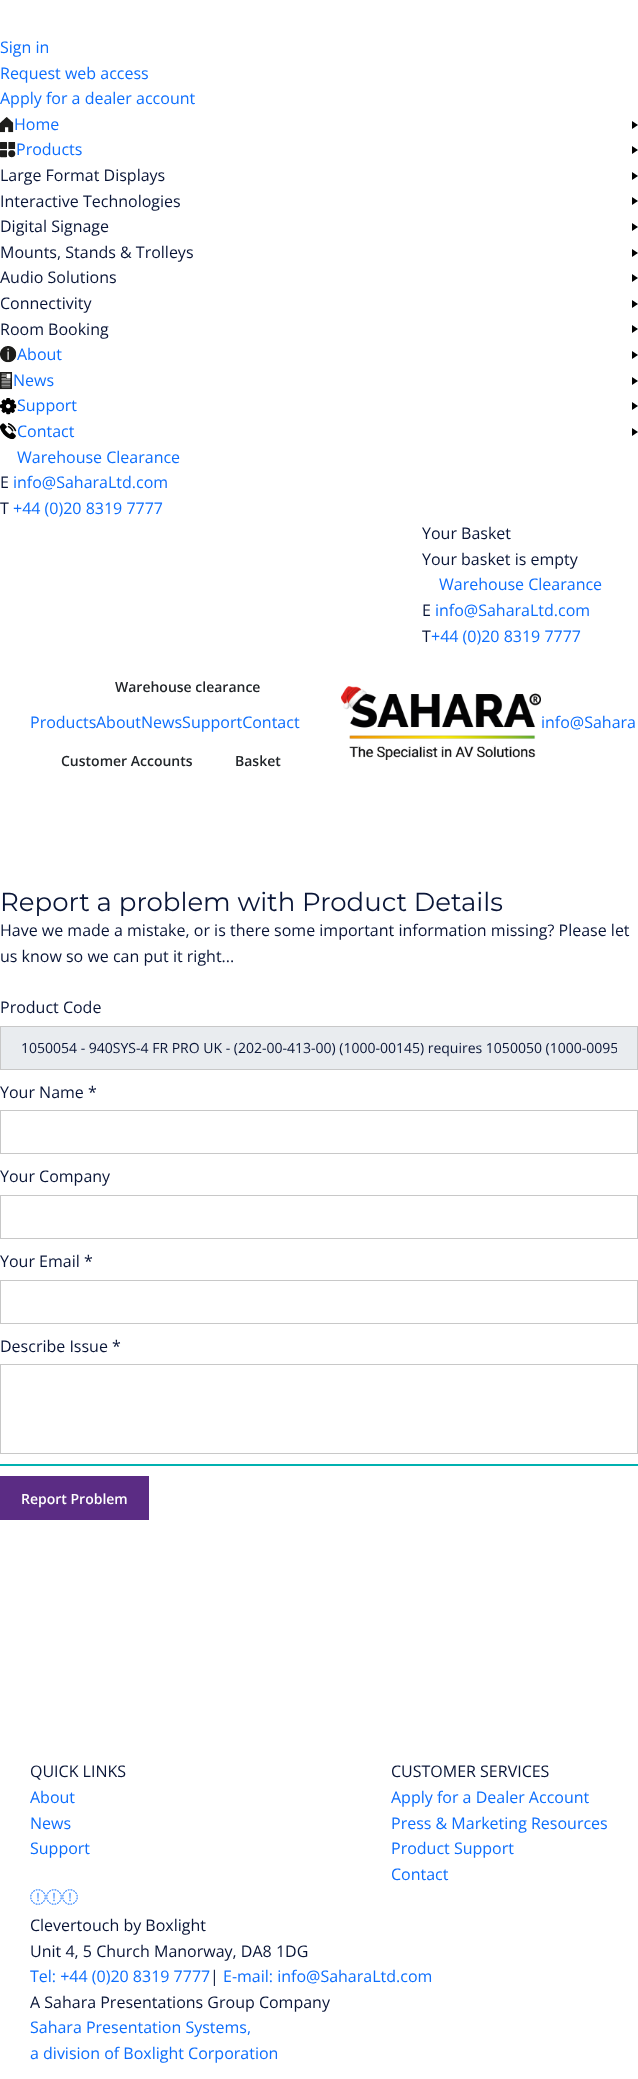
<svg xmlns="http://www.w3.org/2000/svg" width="638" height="2079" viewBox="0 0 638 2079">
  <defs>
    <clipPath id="clip1"><rect x="21" y="1038" width="596" height="19"/></clipPath>
  </defs>
  <rect width="100%" height="100%" fill="#ffffff"/>
  <text x="0" y="53" font-family="Open Sans" font-size="16" fill="#0d6efd">Sign in</text>
  <text x="0" y="79" font-family="Open Sans" font-size="16" fill="#0d6efd">Request web access</text>
  <text x="0" y="104" font-family="Open Sans" font-size="16" fill="#0d6efd">Apply for a dealer account</text>
  <image x="0" y="117" width="14" height="16" href="img1.png"/>
  <text x="14" y="130" font-family="Open Sans" font-size="16" fill="#0d6efd">Home</text>
  <image x="632" y="121" width="6" height="8" href="img2.png"/>
  <image x="0" y="142" width="16" height="16" href="img3.png"/>
  <text x="16" y="155" font-family="Open Sans" font-size="16" fill="#0d6efd">Products</text>
  <image x="632" y="146" width="6" height="8" href="img2.png"/>
  <text x="0" y="181" font-family="Open Sans" font-size="16" fill="#091537">Large Format Displays</text>
  <image x="632" y="172" width="6" height="8" href="img2.png"/>
  <text x="0" y="207" font-family="Open Sans" font-size="16" fill="#091537">Interactive Technologies</text>
  <image x="632" y="197" width="6" height="8" href="img2.png"/>
  <text x="0" y="232" font-family="Open Sans" font-size="16" fill="#091537">Digital Signage</text>
  <image x="632" y="223" width="6" height="8" href="img2.png"/>
  <text x="0" y="258" font-family="Open Sans" font-size="16" fill="#091537">Mounts, Stands &amp; Trolleys</text>
  <image x="632" y="249" width="6" height="8" href="img2.png"/>
  <text x="0" y="283" font-family="Open Sans" font-size="16" fill="#091537">Audio Solutions</text>
  <image x="632" y="274" width="6" height="8" href="img2.png"/>
  <text x="0" y="309" font-family="Open Sans" font-size="16" fill="#091537">Connectivity</text>
  <image x="632" y="300" width="6" height="8" href="img2.png"/>
  <text x="0" y="335" font-family="Open Sans" font-size="16" fill="#091537">Room Booking</text>
  <image x="632" y="325" width="6" height="8" href="img2.png"/>
  <image x="0" y="346" width="17" height="17" href="img4.png"/>
  <text x="17" y="360" font-family="Open Sans" font-size="16" fill="#0d6efd">About</text>
  <image x="632" y="351" width="6" height="8" href="img2.png"/>
  <image x="0" y="372" width="12" height="18" href="img5.png"/>
  <text x="13" y="386" font-family="Open Sans" font-size="16" fill="#0d6efd">News</text>
  <image x="632" y="377" width="6" height="8" href="img2.png"/>
  <image x="0" y="398" width="17" height="17" href="img6.png"/>
  <text x="17" y="411" font-family="Open Sans" font-size="16" fill="#0d6efd">Support</text>
  <image x="632" y="402" width="6" height="8" href="img2.png"/>
  <image x="0" y="423" width="17" height="17" href="img7.png"/>
  <text x="17" y="437" font-family="Open Sans" font-size="16" fill="#0d6efd">Contact</text>
  <image x="632" y="428" width="6" height="8" href="img2.png"/>
  <text x="17" y="463" font-family="Open Sans" font-size="16" fill="#0d6efd">Warehouse Clearance</text>
  <text x="0" y="488" font-family="Open Sans" font-size="16" fill="#091537">E</text>
  <text x="13" y="488" font-family="Open Sans" font-size="16" fill="#0d6efd">info@SaharaLtd.com</text>
  <text x="0" y="514" font-family="Open Sans" font-size="16" fill="#091537">T</text>
  <text x="13" y="514" font-family="Open Sans" font-size="16" fill="#0d6efd">+44 (0)20 8319 7777</text>
  <text x="422" y="539" font-family="Open Sans" font-size="16" fill="#091537">Your Basket</text>
  <text x="422" y="565" font-family="Open Sans" font-size="16" fill="#091537">Your basket is empty</text>
  <text x="439" y="590" font-family="Open Sans" font-size="16" fill="#0d6efd">Warehouse Clearance</text>
  <text x="422" y="616" font-family="Open Sans" font-size="16" fill="#091537">E</text>
  <text x="435" y="616" font-family="Open Sans" font-size="16" fill="#0d6efd">info@SaharaLtd.com</text>
  <text x="422" y="642" font-family="Open Sans" font-size="16" fill="#091537">T</text>
  <text x="431" y="642" font-family="Open Sans" font-size="16" fill="#0d6efd">+44 (0)20 8319 7777</text>
  <text x="115" y="692" font-family="Open Sans" font-size="14" font-weight="600" fill="#212529">Warehouse clearance</text>
  <text x="61" y="766" font-family="Open Sans" font-size="14" font-weight="600" fill="#212529">Customer Accounts</text>
  <text x="235" y="766" font-family="Open Sans" font-size="14" font-weight="600" fill="#212529">Basket</text>
  <image x="341" y="686" width="200" height="74" href="img8.png"/>
  <text x="30" y="728" font-family="Open Sans" font-size="16" fill="#0d6efd">Products</text>
  <text x="96" y="728" font-family="Open Sans" font-size="16" fill="#0d6efd">AboutNewsSupportContact</text>
  <text x="541" y="728" font-family="Open Sans" font-size="16" fill="#0d6efd">info@Sahara</text>
  <text x="0" y="911" font-family="Montserrat" font-size="26" fill="#091537">Report a problem with Product Details</text>
  <text x="0" y="936" font-family="Open Sans" font-size="16" fill="#091537">Have we made a mistake, or is there some important information missing? Please let</text>
  <text x="0" y="962" font-family="Open Sans" font-size="16" fill="#091537">us know so we can put it right...</text>
  <text x="0" y="1013" font-family="Open Sans" font-size="16" fill="#091537">Product Code</text>
  <rect x="0.5" y="1026.5" width="637" height="43" fill="#e9ecef" stroke="#c8c8c8"/>
  <g clip-path="url(#clip1)">
    <text x="21" y="1053" font-family="Open Sans" font-size="14" fill="#091537">1050054 - 940SYS-4 FR PRO UK - (202-00-413-00) (1000-00145) requires 1050050 (1000-0095</text>
  </g>
  <text x="0" y="1098" font-family="Open Sans" font-size="16" fill="#091537">Your Name *</text>
  <rect x="0.5" y="1110.5" width="637" height="43" fill="none" stroke="#c8c8c8"/>
  <text x="0" y="1182" font-family="Open Sans" font-size="16" fill="#091537">Your Company</text>
  <rect x="0.5" y="1195.5" width="637" height="43" fill="none" stroke="#c8c8c8"/>
  <text x="0" y="1267" font-family="Open Sans" font-size="16" fill="#091537">Your Email *</text>
  <rect x="0.5" y="1280.5" width="637" height="43" fill="none" stroke="#c8c8c8"/>
  <text x="0" y="1352" font-family="Open Sans" font-size="16" fill="#091537">Describe Issue *</text>
  <rect x="0.5" y="1364.5" width="637" height="89" fill="none" stroke="#c8c8c8"/>
  <rect x="0" y="1464" width="638" height="2" fill="#00b1b0"/>
  <rect x="0" y="1476" width="149" height="44" fill="#5b2c84"/>
  <text x="21" y="1504" font-family="Open Sans" font-size="14" font-weight="600" fill="#ffffff">Report Problem</text>
  <text x="30" y="1777" font-family="Open Sans" font-size="16" fill="#091537">QUICK LINKS</text>
  <text x="30" y="1803" font-family="Open Sans" font-size="16" fill="#0d6efd">About</text>
  <text x="30" y="1829" font-family="Open Sans" font-size="16" fill="#0d6efd">News</text>
  <text x="30" y="1854" font-family="Open Sans" font-size="16" fill="#0d6efd">Support</text>
  <text x="391" y="1777" font-family="Open Sans" font-size="16" fill="#091537">CUSTOMER SERVICES</text>
  <text x="391" y="1803" font-family="Open Sans" font-size="16" fill="#0d6efd">Apply for a Dealer Account</text>
  <text x="391" y="1829" font-family="Open Sans" font-size="16" fill="#0d6efd">Press &amp; Marketing Resources</text>
  <text x="391" y="1854" font-family="Open Sans" font-size="16" fill="#0d6efd">Product Support</text>
  <text x="391" y="1880" font-family="Open Sans" font-size="16" fill="#0d6efd">Contact</text>
  <image x="30" y="1889" width="16" height="16" href="img9.png"/>
  <image x="46" y="1889" width="16" height="16" href="img9.png"/>
  <image x="62" y="1889" width="16" height="16" href="img9.png"/>
  <text x="30" y="1931" font-family="Open Sans" font-size="16" fill="#091537">Clevertouch by Boxlight</text>
  <text x="30" y="1957" font-family="Open Sans" font-size="16" fill="#091537">Unit 4, 5 Church Manorway, DA8 1DG</text>
  <text x="30" y="1982" font-family="Open Sans" font-size="16" fill="#0d6efd">Tel: +44 (0)20 8319 7777</text>
  <text x="210" y="1982" font-family="Open Sans" font-size="16" fill="#091537">|</text>
  <text x="223" y="1982" font-family="Open Sans" font-size="16" fill="#0d6efd">E-mail: info@SaharaLtd.com</text>
  <text x="30" y="2008" font-family="Open Sans" font-size="16" fill="#091537">A Sahara Presentations Group Company</text>
  <text x="30" y="2033" font-family="Open Sans" font-size="16" fill="#0d6efd">Sahara Presentation Systems,</text>
  <text x="30" y="2059" font-family="Open Sans" font-size="16" fill="#0d6efd">a division of Boxlight Corporation</text>
</svg>
